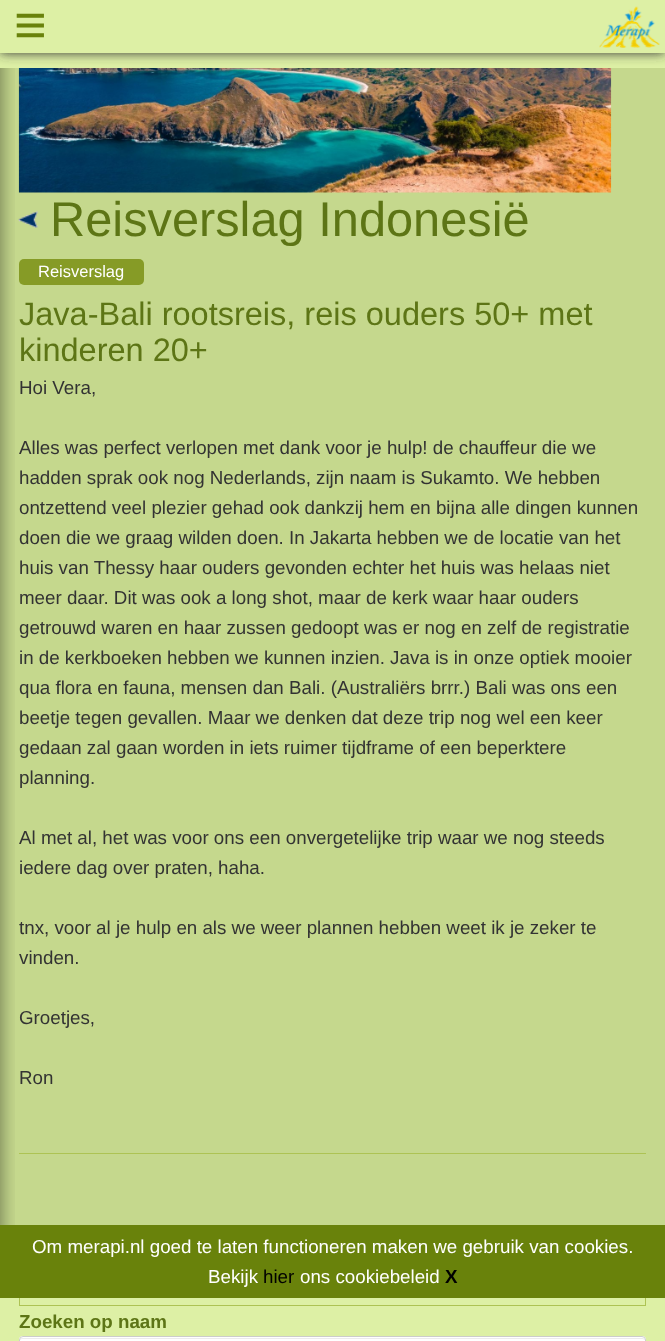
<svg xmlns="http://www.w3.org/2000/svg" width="665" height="1341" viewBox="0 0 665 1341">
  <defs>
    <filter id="blur1" x="-50%" y="-200%" width="200%" height="500%"><feGaussianBlur stdDeviation="9.5"/></filter>
    <filter id="blur2" x="-50%" y="-200%" width="200%" height="500%"><feGaussianBlur stdDeviation="6"/></filter>
  </defs>
  <rect width="100%" height="100%" fill="#c5d88d"/>
  <image x="18" y="211" width="20" height="17" href="img3.png"/>
  <rect x="19" y="259" width="125" height="26" rx="5" fill="#869b26"/>
  <rect x="19" y="1153" width="627" height="1" fill="#adc354"/>
  <rect x="-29" y="0" width="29" height="1341" fill="#000000" fill-opacity="0.5" filter="url(#blur1)"/>
  <rect x="0" y="53" width="665" height="15" fill="#ddf0a5"/>
  <image x="18" y="68" width="594" height="125" href="img2.png"/>
  <rect x="0" y="0" width="665" height="53" fill="#333333" filter="url(#blur2)"/>
  <rect x="0" y="0" width="665" height="53" fill="#ddf0a5"/>
  <text x="14" y="44" font-family="Liberation Sans" font-size="56" fill="#69820b">≡</text>
  <image x="599" y="6" width="61" height="42" href="img1.png"/>
  <text x="50" y="236" font-family="Liberation Sans" font-size="48.75" fill="#5d7516">Reisverslag Indonesië</text>
  <text x="38" y="277" font-family="Liberation Sans" font-size="16.5" fill="#ffffff">Reisverslag</text>
  <text x="19" y="325" font-family="Liberation Sans" font-size="32.5" fill="#5d7516">Java-Bali rootsreis, reis ouders 50+ met</text>
  <text x="19" y="361" font-family="Liberation Sans" font-size="32.5" fill="#5d7516">kinderen 20+</text>
  <text x="19" y="394" font-family="Liberation Sans" font-size="18.75" fill="#333333">Hoi Vera,</text>
  <text x="19" y="454" font-family="Liberation Sans" font-size="18.75" fill="#333333">Alles was perfect verlopen met dank voor je hulp! de chauffeur die we</text>
  <text x="19" y="484" font-family="Liberation Sans" font-size="18.75" fill="#333333">hadden sprak ook nog Nederlands, zijn naam is Sukamto. We hebben</text>
  <text x="19" y="514" font-family="Liberation Sans" font-size="18.75" fill="#333333">ontzettend veel plezier gehad ook dankzij hem en bijna alle dingen kunnen</text>
  <text x="19" y="544" font-family="Liberation Sans" font-size="18.75" fill="#333333">doen die we graag wilden doen. In Jakarta hebben we de locatie van het</text>
  <text x="19" y="574" font-family="Liberation Sans" font-size="18.75" fill="#333333">huis van Thessy haar ouders gevonden echter het huis was helaas niet</text>
  <text x="19" y="604" font-family="Liberation Sans" font-size="18.75" fill="#333333">meer daar. Dit was ook a long shot, maar de kerk waar haar ouders</text>
  <text x="19" y="634" font-family="Liberation Sans" font-size="18.75" fill="#333333">getrouwd waren en haar zussen gedoopt was er nog en zelf de registratie</text>
  <text x="19" y="664" font-family="Liberation Sans" font-size="18.75" fill="#333333">in de kerkboeken hebben we kunnen inzien. Java is in onze optiek mooier</text>
  <text x="19" y="694" font-family="Liberation Sans" font-size="18.75" fill="#333333">qua flora en fauna, mensen dan Bali. (Australiërs brrr.) Bali was ons een</text>
  <text x="19" y="724" font-family="Liberation Sans" font-size="18.75" fill="#333333">beetje tegen gevallen. Maar we denken dat deze trip nog wel een keer</text>
  <text x="19" y="754" font-family="Liberation Sans" font-size="18.75" fill="#333333">gedaan zal gaan worden in iets ruimer tijdframe of een beperktere</text>
  <text x="19" y="784" font-family="Liberation Sans" font-size="18.75" fill="#333333">planning.</text>
  <text x="19" y="844" font-family="Liberation Sans" font-size="18.75" fill="#333333">Al met al, het was voor ons een onvergetelijke trip waar we nog steeds</text>
  <text x="19" y="874" font-family="Liberation Sans" font-size="18.75" fill="#333333">iedere dag over praten, haha.</text>
  <text x="19" y="934" font-family="Liberation Sans" font-size="18.75" fill="#333333">tnx, voor al je hulp en als we weer plannen hebben weet ik je zeker te</text>
  <text x="19" y="964" font-family="Liberation Sans" font-size="18.75" fill="#333333">vinden.</text>
  <text x="19" y="1024" font-family="Liberation Sans" font-size="18.75" fill="#333333">Groetjes,</text>
  <text x="19" y="1084" font-family="Liberation Sans" font-size="18.75" fill="#333333">Ron</text>
  <rect x="0" y="1298" width="665" height="43" fill="#ddf0a5"/>
  <rect x="19.5" y="1279.5" width="626" height="26" fill="none" stroke="#adc354"/>
  <text x="19" y="1328" font-family="Liberation Sans" font-size="18.75" font-weight="bold" fill="#5d7516">Zoeken op naam</text>
  <rect x="19" y="1336" width="627" height="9" rx="4" fill="#ffffff"/>
  <path d="M22 1339H642C644 1339 645 1340 645 1341C645 1339 644 1338 642 1338H22C21 1338 20 1339 20 1341C20 1340 21 1339 22 1339Z" fill="#ececec"/>
  <rect x="19.5" y="1336.5" width="626" height="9" rx="3.5" fill="none" stroke="#cccccc"/>
  <rect x="0" y="1225" width="665" height="73" fill="#69820b"/>
  <text x="32" y="1253" font-family="Liberation Sans" font-size="18.75" fill="#ffffff">Om merapi.nl goed te laten functioneren maken we gebruik van cookies.</text>
  <text x="208" y="1283" font-family="Liberation Sans" font-size="18.75" fill="#ffffff">Bekijk</text>
  <text x="263" y="1283" font-family="Liberation Sans" font-size="18.75" fill="#000000">hier</text>
  <text x="300" y="1283" font-family="Liberation Sans" font-size="18.75" fill="#ffffff">ons cookiebeleid</text>
  <text x="445" y="1283" font-family="Liberation Sans" font-size="18.75" font-weight="bold" fill="#000000">X</text>
</svg>
